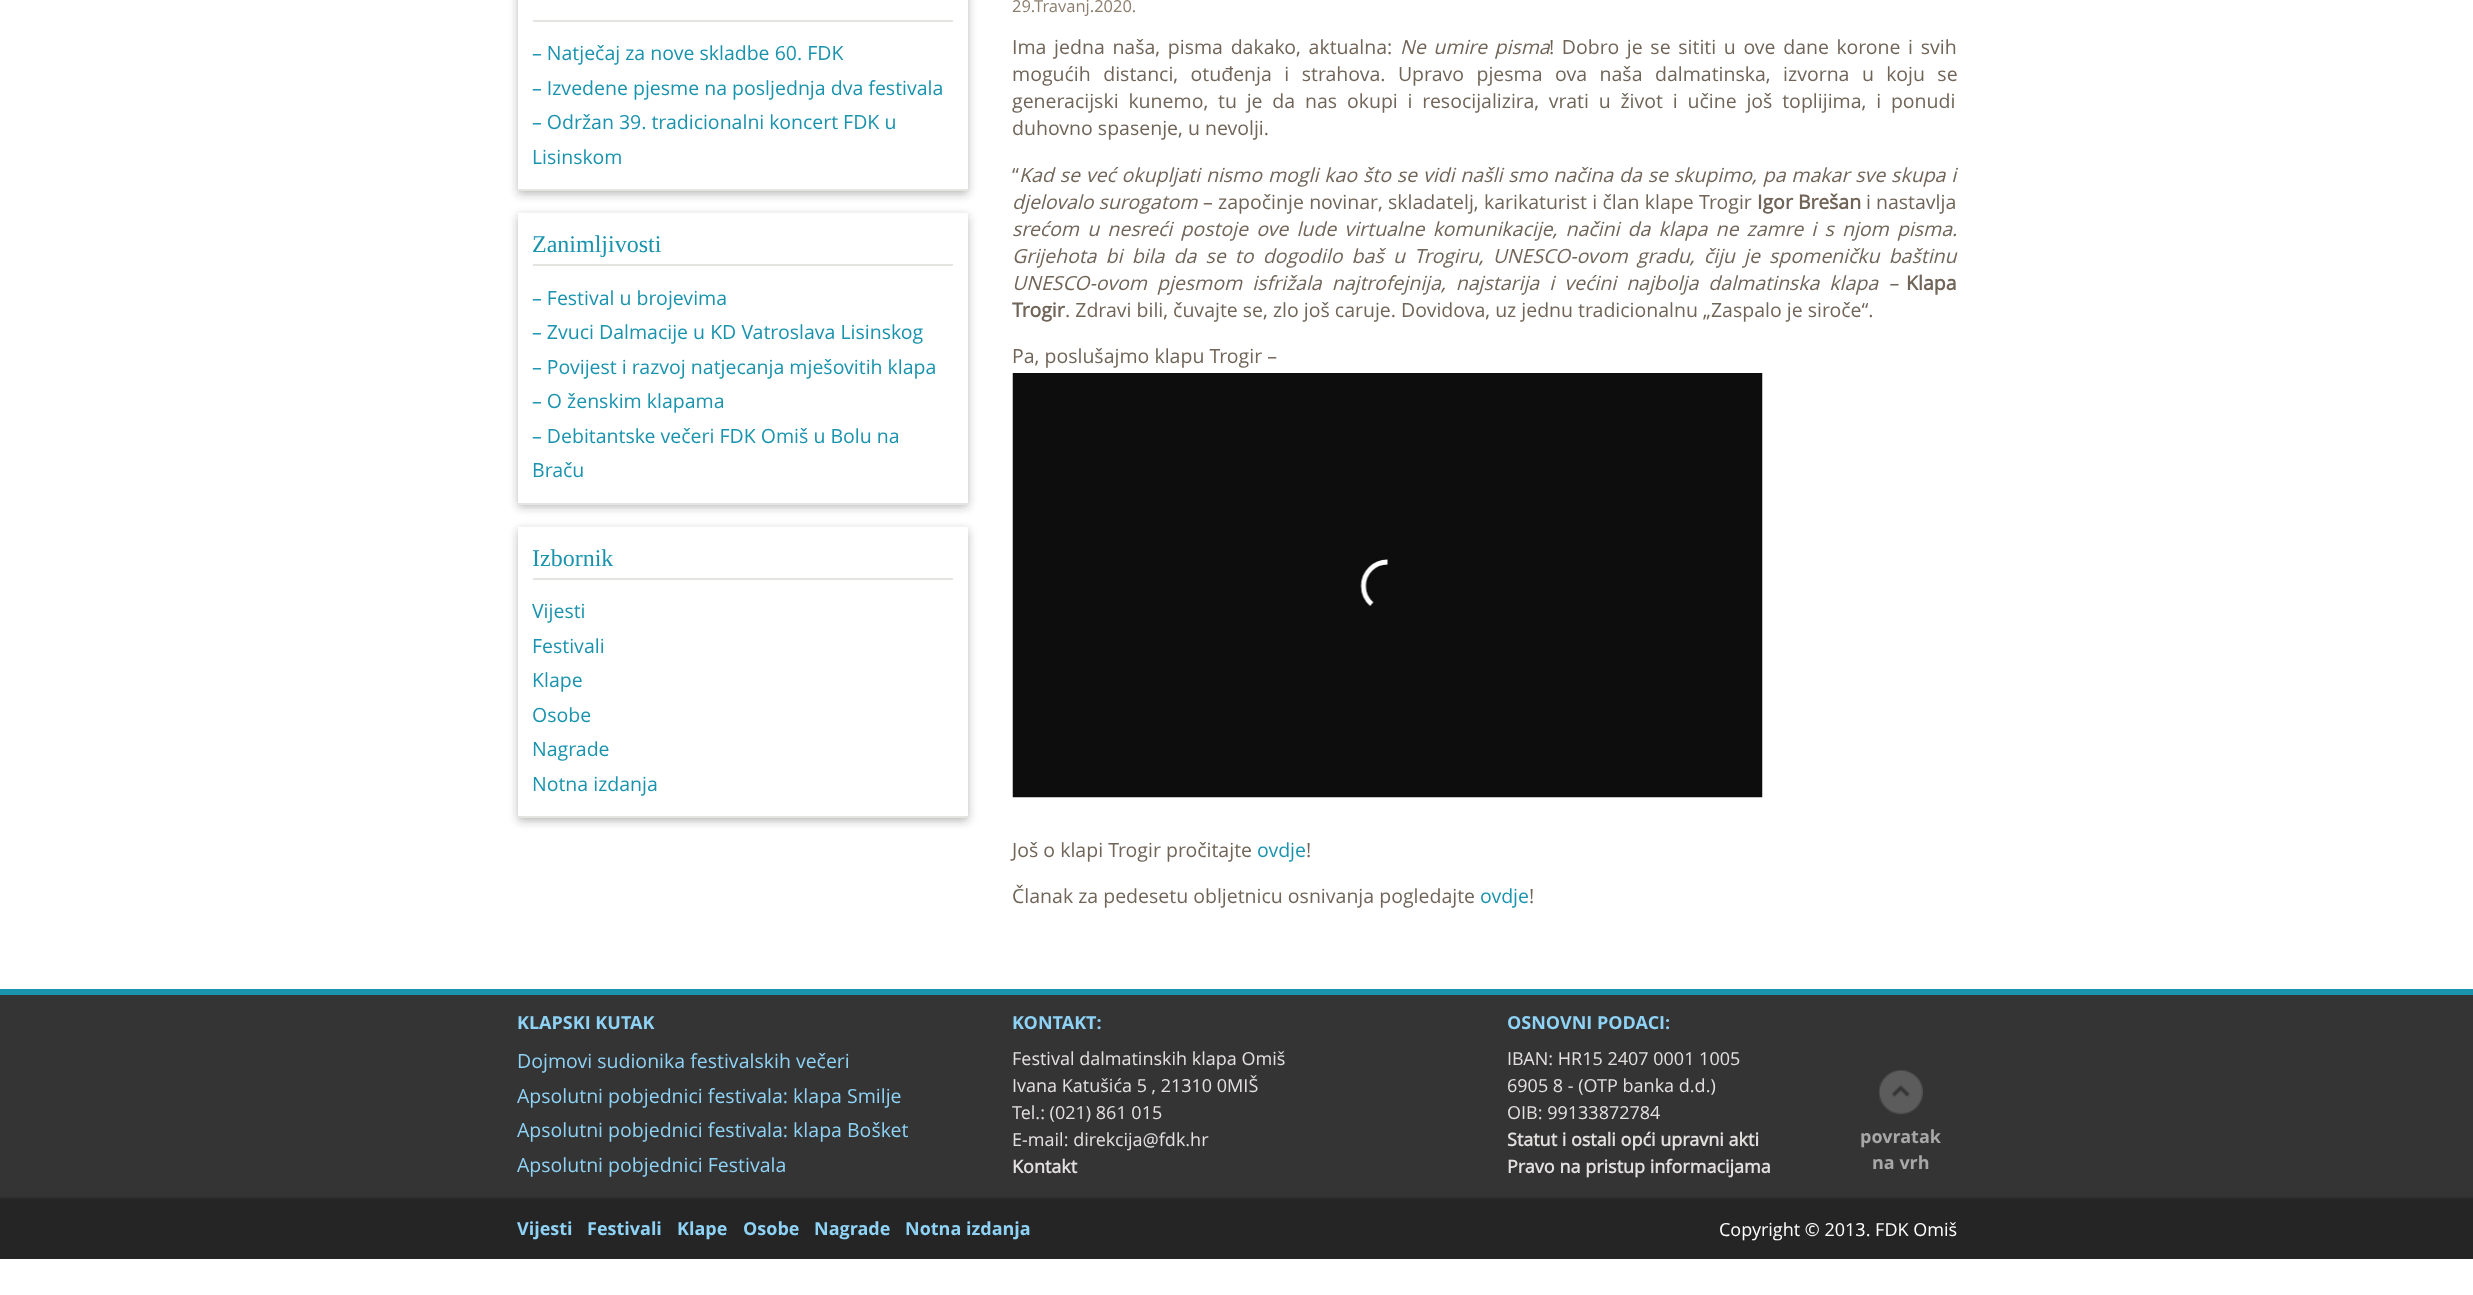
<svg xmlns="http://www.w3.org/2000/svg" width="2473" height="1295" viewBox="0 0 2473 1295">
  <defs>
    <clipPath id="clip1"><path d="M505 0H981V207H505ZM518-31H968V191H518Z" clip-rule="evenodd"/></clipPath>
    <filter id="blur1" x="-50%" y="-200%" width="200%" height="500%"><feGaussianBlur stdDeviation="4"/></filter>
    <clipPath id="clip2"><path d="M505 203H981V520H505ZM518 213H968V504H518Z" clip-rule="evenodd"/></clipPath>
    <clipPath id="clip3"><path d="M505 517H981V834H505ZM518 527H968V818H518Z" clip-rule="evenodd"/></clipPath>
  </defs>
  <rect width="100%" height="100%" fill="#ffffff"/>
  <g clip-path="url(#clip1)">
    <rect x="518" y="-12" width="450" height="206" fill="#323232" fill-opacity="0.35" filter="url(#blur1)"/>
  </g>
  <rect x="518" y="189" width="450" height="2" fill="#e6e4e1"/>
  <rect x="533" y="20" width="420" height="2" fill="#e6e4e1"/>
  <text x="532" y="60" font-family="Open Sans" font-size="19.5" fill="#1a93ae">– Natječaj za nove skladbe 60. FDK</text>
  <text x="532" y="95" font-family="Open Sans" font-size="19.5" fill="#1a93ae">– Izvedene pjesme na posljednja dva festivala</text>
  <text x="532" y="129" font-family="Open Sans" font-size="19.5" fill="#1a93ae">– Održan 39. tradicionalni koncert FDK u</text>
  <text x="532" y="164" font-family="Open Sans" font-size="19.5" fill="#1a93ae">Lisinskom</text>
  <g clip-path="url(#clip2)">
    <rect x="518" y="216" width="450" height="291" fill="#323232" fill-opacity="0.35" filter="url(#blur1)"/>
  </g>
  <rect x="518" y="503" width="450" height="2" fill="#e6e4e1"/>
  <rect x="533" y="264" width="420" height="2" fill="#e6e4e1"/>
  <text x="532" y="252" font-family="Liberation Serif" font-size="24" fill="#1a93ae">Zanimljivosti</text>
  <text x="532" y="305" font-family="Open Sans" font-size="19.5" fill="#1a93ae">– Festival u brojevima</text>
  <text x="532" y="339" font-family="Open Sans" font-size="19.5" fill="#1a93ae">– Zvuci Dalmacije u KD Vatroslava Lisinskog</text>
  <text x="532" y="374" font-family="Open Sans" font-size="19.5" fill="#1a93ae">– Povijest i razvoj natjecanja mješovitih klapa</text>
  <text x="532" y="408" font-family="Open Sans" font-size="19.5" fill="#1a93ae">– O ženskim klapama</text>
  <text x="532" y="443" font-family="Open Sans" font-size="19.5" fill="#1a93ae">– Debitantske večeri FDK Omiš u Bolu na</text>
  <text x="532" y="477" font-family="Open Sans" font-size="19.5" fill="#1a93ae">Braču</text>
  <g clip-path="url(#clip3)">
    <rect x="518" y="530" width="450" height="291" fill="#323232" fill-opacity="0.35" filter="url(#blur1)"/>
  </g>
  <rect x="518" y="816" width="450" height="2" fill="#e6e4e1"/>
  <rect x="533" y="578" width="420" height="2" fill="#e6e4e1"/>
  <text x="532" y="566" font-family="Liberation Serif" font-size="24" fill="#1a93ae">Izbornik</text>
  <text x="532" y="618" font-family="Open Sans" font-size="19.5" fill="#1a93ae">Vijesti</text>
  <text x="532" y="653" font-family="Open Sans" font-size="19.5" fill="#1a93ae">Festivali</text>
  <text x="532" y="687" font-family="Open Sans" font-size="19.5" fill="#1a93ae">Klape</text>
  <text x="532" y="722" font-family="Open Sans" font-size="19.5" fill="#1a93ae">Osobe</text>
  <text x="532" y="756" font-family="Open Sans" font-size="19.5" fill="#1a93ae">Nagrade</text>
  <text x="532" y="791" font-family="Open Sans" font-size="19.5" fill="#1a93ae">Notna izdanja</text>
  <text x="1012" y="12" font-family="Open Sans" font-size="16.5" fill="#8d8071">29.Travanj.2020.</text>
  <text x="1012" y="54" word-spacing="2.6" font-family="Open Sans" font-size="19.5" fill="#706558">Ima jedna naša, pisma dakako, aktualna:</text>
  <text x="1400" y="54" word-spacing="2.6" font-family="Open Sans" font-size="19.5" font-style="italic" fill="#706558">Ne umire pisma</text>
  <text x="1549" y="54" word-spacing="2.6" font-family="Open Sans" font-size="19.5" fill="#706558">! Dobro je se sititi u ove dane korone i svih</text>
  <text x="1012" y="81" word-spacing="7.4" font-family="Open Sans" font-size="19.5" fill="#706558">mogućih distanci, otuđenja i strahova. Upravo pjesma ova naša dalmatinska, izvorna u koju se</text>
  <text x="1012" y="108" word-spacing="4.75" font-family="Open Sans" font-size="19.5" fill="#706558">generacijski kunemo, tu je da nas okupi i resocijalizira, vrati u život i učine još toplijima, i ponudi</text>
  <text x="1012" y="135" font-family="Open Sans" font-size="19.5" fill="#706558">duhovno spasenje, u nevolji.</text>
  <text x="1012" y="182" font-family="Open Sans" font-size="19.5" fill="#706558">“</text>
  <text x="1019" y="182" word-spacing="0.8" font-family="Open Sans" font-size="19.5" font-style="italic" fill="#706558">Kad se već okupljati nismo mogli kao što se vidi našli smo načina da se skupimo, pa makar sve skupa i</text>
  <text x="1012" y="209" font-family="Open Sans" font-size="19.5" font-style="italic" fill="#706558">djelovalo surogatom</text>
  <text x="1203" y="209" word-spacing="0.25" font-family="Open Sans" font-size="19.5" fill="#706558">– započinje novinar, skladatelj, karikaturist i član klape Trogir</text>
  <text x="1757" y="209" font-family="Open Sans" font-size="19.5" font-weight="bold" fill="#706558">Igor Brešan</text>
  <text x="1866" y="209" font-family="Open Sans" font-size="19.5" fill="#706558">i nastavlja</text>
  <text x="1012" y="236" word-spacing="3.1" font-family="Open Sans" font-size="19.5" font-style="italic" fill="#706558">srećom u nesreći postoje ove lude virtualne komunikacije, načini da klapa ne zamre i s njom pisma.</text>
  <text x="1012" y="263" word-spacing="4.1" font-family="Open Sans" font-size="19.5" font-style="italic" fill="#706558">Grijehota bi bila da se to dogodilo baš u Trogiru, UNESCO-ovom gradu, čiju je spomeničku baštinu</text>
  <text x="1012" y="290" word-spacing="5" font-family="Open Sans" font-size="19.5" font-style="italic" fill="#706558">UNESCO-ovom pjesmom isfrižala najtrofejnija, najstarija i većini najbolja dalmatinska klapa –</text>
  <text x="1906" y="290" font-family="Open Sans" font-size="19.5" font-weight="bold" fill="#706558">Klapa</text>
  <text x="1012" y="317" font-family="Open Sans" font-size="19.5" font-weight="bold" fill="#706558">Trogir</text>
  <text x="1065" y="317" font-family="Open Sans" font-size="19.5" fill="#706558">. Zdravi bili, čuvajte se, zlo još caruje. Dovidova, uz jednu tradicionalnu „Zaspalo je siroče“.</text>
  <text x="1012" y="363" font-family="Open Sans" font-size="19.5" fill="#706558">Pa, poslušajmo klapu Trogir –</text>
  <image x="1012" y="373" width="751" height="425" href="img1.png"/>
  <text x="1012" y="857" font-family="Open Sans" font-size="19.5" fill="#706558">Još o klapi Trogir pročitajte</text>
  <text x="1257" y="857" font-family="Open Sans" font-size="19.5" fill="#1a93ae">ovdje</text>
  <text x="1306" y="857" font-family="Open Sans" font-size="19.5" fill="#706558">!</text>
  <text x="1012" y="903" font-family="Open Sans" font-size="19.5" fill="#706558">Članak za pedesetu obljetnicu osnivanja pogledajte</text>
  <text x="1480" y="903" font-family="Open Sans" font-size="19.5" fill="#1a93ae">ovdje</text>
  <text x="1529" y="903" font-family="Open Sans" font-size="19.5" fill="#706558">!</text>
  <rect x="0" y="995" width="2473" height="202" fill="#343434"/>
  <rect x="0" y="989" width="2473" height="6" fill="#1a93ae"/>
  <text x="517" y="1029" font-family="'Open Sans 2'" font-size="18" font-weight="bold" fill="#8ed2f5">KLAPSKI KUTAK</text>
  <text x="517" y="1068" font-family="Open Sans" font-size="19.5" fill="#8ed2f5">Dojmovi sudionika festivalskih večeri</text>
  <text x="517" y="1103" font-family="Open Sans" font-size="19.5" fill="#8ed2f5">Apsolutni pobjednici festivala: klapa Smilje</text>
  <text x="517" y="1137" font-family="Open Sans" font-size="19.5" fill="#8ed2f5">Apsolutni pobjednici festivala: klapa Bošket</text>
  <text x="517" y="1172" font-family="Open Sans" font-size="19.5" fill="#8ed2f5">Apsolutni pobjednici Festivala</text>
  <text x="1012" y="1029" font-family="'Open Sans 2'" font-size="18" font-weight="bold" fill="#8ed2f5">KONTAKT:</text>
  <text x="1012" y="1065" font-family="Open Sans" font-size="18" fill="#e4e0e0">Festival dalmatinskih klapa Omiš</text>
  <text x="1012" y="1092" font-family="Open Sans" font-size="18" fill="#e4e0e0">Ivana Katušića 5 , 21310 0MIŠ</text>
  <text x="1012" y="1119" font-family="Open Sans" font-size="18" fill="#e4e0e0">Tel.: (021) 861 015</text>
  <text x="1012" y="1146" font-family="Open Sans" font-size="18" fill="#e4e0e0">E-mail: direkcija@fdk.hr</text>
  <text x="1012" y="1173" font-family="Open Sans" font-size="18" font-weight="bold" fill="#e4e0e0">Kontakt</text>
  <text x="1507" y="1029" font-family="'Open Sans 2'" font-size="18" font-weight="bold" fill="#8ed2f5">OSNOVNI PODACI:</text>
  <text x="1507" y="1065" font-family="Open Sans" font-size="18" fill="#e4e0e0">IBAN: HR15 2407 0001 1005</text>
  <text x="1507" y="1092" font-family="Open Sans" font-size="18" fill="#e4e0e0">6905 8 - (OTP banka d.d.)</text>
  <text x="1507" y="1119" font-family="Open Sans" font-size="18" fill="#e4e0e0">OIB: 99133872784</text>
  <text x="1507" y="1146" font-family="Open Sans" font-size="18" font-weight="bold" fill="#e4e0e0">Statut i ostali opći upravni akti</text>
  <text x="1507" y="1173" font-family="Open Sans" font-size="18" font-weight="bold" fill="#e4e0e0">Pravo na pristup informacijama</text>
  <image x="1878" y="1070" width="45" height="45" href="img2.png"/>
  <text x="1860" y="1143" font-family="'Open Sans 2'" font-size="18" font-weight="bold" fill="#a8a7a7">povratak</text>
  <text x="1872" y="1169" font-family="'Open Sans 2'" font-size="18" font-weight="bold" fill="#a8a7a7">na vrh</text>
  <rect x="0" y="1199" width="2473" height="60" fill="#252525"/>
  <rect x="0" y="1197" width="2473" height="2" fill="#2c2c2c"/>
  <text x="517" y="1235" font-family="'Open Sans 2'" font-size="18" font-weight="bold" fill="#8ed2f5">Vijesti</text>
  <text x="587" y="1235" font-family="'Open Sans 2'" font-size="18" font-weight="bold" fill="#8ed2f5">Festivali</text>
  <text x="677" y="1235" font-family="'Open Sans 2'" font-size="18" font-weight="bold" fill="#8ed2f5">Klape</text>
  <text x="743" y="1235" font-family="'Open Sans 2'" font-size="18" font-weight="bold" fill="#8ed2f5">Osobe</text>
  <text x="814" y="1235" font-family="'Open Sans 2'" font-size="18" font-weight="bold" fill="#8ed2f5">Nagrade</text>
  <text x="905" y="1235" font-family="'Open Sans 2'" font-size="18" font-weight="bold" fill="#8ed2f5">Notna izdanja</text>
  <text x="1719" y="1236" font-family="Open Sans" font-size="18" fill="#ffffff">Copyright © 2013. FDK Omiš</text>
</svg>
